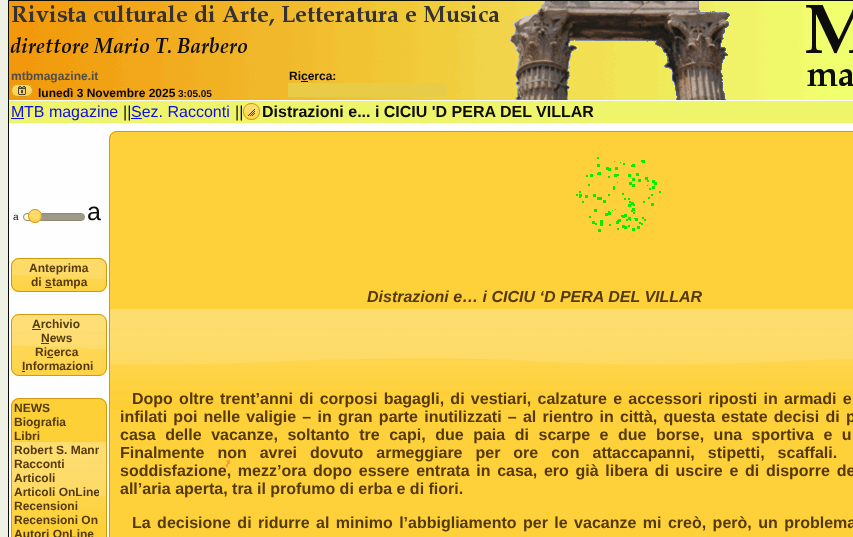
<svg xmlns="http://www.w3.org/2000/svg" width="853" height="537" viewBox="0 0 853 537">
  <defs>
    <clipPath id="clip1"><rect x="14" y="443" width="85" height="14"/></clipPath>
    <clipPath id="clip2"><rect x="14" y="485" width="85" height="14"/></clipPath>
  </defs>
  <rect width="100%" height="100%" fill="#f0f1e5"/>
  <rect x="8.5" y="0.5" width="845" height="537" fill="#fefefe" stroke="#0c0c0b"/>
  <image x="9" y="1" width="844" height="99" href="img1.png"/>
  <text x="11" y="80" font-family="Liberation Sans" font-size="12" font-weight="bold" fill="#4d4d4c">mtbmagazine.it</text>
  <text x="289" y="80" font-family="Liberation Sans" font-size="12" font-weight="bold" fill="#0c0c0b">Ricerca:</text>
  <rect x="301" y="81" width="7" height="1" fill="#0c0c0b"/>
  <rect x="288" y="83" width="159" height="14" fill="#e8cc48"/>
  <image x="11" y="84" width="22" height="13" href="img2.png"/>
  <rect x="11.5" y="84.5" width="21" height="12" rx="6" fill="none" stroke="#d39910"/>
  <image x="18" y="86" width="8" height="9" href="img3.png"/>
  <text x="38" y="97" font-family="Liberation Sans" font-size="12" font-weight="bold" fill="#0c0801">lunedì 3 Novembre 2025</text>
  <text x="178" y="97" font-family="Liberation Sans" font-size="10" font-weight="bold" fill="#0c0c0b">3:05.05</text>
  <rect x="9" y="101" width="844" height="22" fill="#eff56a"/>
  <text x="11" y="117" font-family="Liberation Sans" font-size="16" fill="#0c0cee">M</text>
  <text x="24" y="117" font-family="Liberation Sans" font-size="16" fill="#0c0ce7">TB magazine</text>
  <rect x="11" y="118" width="13" height="1" fill="#0c0cee"/>
  <text x="123" y="117" font-family="Liberation Sans" font-size="16" fill="#0c0c0b">||</text>
  <text x="131" y="117" font-family="Liberation Sans" font-size="16" fill="#0c0cee">Sez. Racconti</text>
  <rect x="131" y="118" width="11" height="1" fill="#0c0cee"/>
  <text x="235" y="117" font-family="Liberation Sans" font-size="16" fill="#0c0c0b">||</text>
  <image x="243" y="103" width="17" height="17" href="img4.png"/>
  <rect x="243.5" y="103.5" width="16" height="16" rx="7.5" fill="none" stroke="#d39910"/>
  <image x="248" y="109" width="7" height="7" href="img5.png"/>
  <text x="262" y="117" font-family="Liberation Sans" font-size="16" font-weight="bold" fill="#0c0c0b">Distrazioni e... i CICIU 'D PERA DEL VILLAR</text>
  <text x="13" y="220" font-family="Liberation Sans" font-size="10" fill="#0c0c0b">a</text>
  <rect x="23" y="213" width="62" height="8" rx="4" fill="#fdeebf"/>
  <rect x="23" y="214" width="62" height="7" fill="#fef8e4" fill-opacity="0.95"/>
  <rect x="23.5" y="213.5" width="61" height="7" rx="3.5" fill="none" stroke="#938971"/>
  <rect x="39" y="214" width="45" height="6" fill="#9d9887"/>
  <image x="28" y="209" width="14" height="14" href="img6.png"/>
  <circle cx="35" cy="216" r="6.5" fill="none" stroke="#d39910"/>
  <text x="87" y="220" font-family="Liberation Sans" font-size="25" fill="#0c0c0b">a</text>
  <rect x="11" y="258" width="96" height="34" rx="8" fill="#fed039"/>
  <image x="11" y="258" width="96" height="34" href="img7.png"/>
  <rect x="11.5" y="258.5" width="95" height="33" rx="7.5" fill="none" stroke="#d19405" stroke-opacity="0.95"/>
  <text x="29" y="272" font-family="Liberation Sans" font-size="12" font-weight="bold" fill="#543a0b">Anteprima</text>
  <text x="31" y="286" font-family="Liberation Sans" font-size="12" font-weight="bold" fill="#543a0b">di s</text>
  <rect x="45" y="287" width="7" height="1" fill="#543a0b"/>
  <text x="52" y="286" font-family="Liberation Sans" font-size="12" font-weight="bold" fill="#543a0b">tampa</text>
  <image x="11" y="314" width="96" height="62" href="img8.png"/>
  <rect x="11.5" y="314.5" width="95" height="61" rx="7.5" fill="none" stroke="#d39910"/>
  <text x="32" y="328" font-family="Liberation Sans" font-size="12" font-weight="bold" fill="#543a0b">Archivio</text>
  <rect x="32" y="329" width="9" height="1" fill="#543a0b"/>
  <text x="41" y="342" font-family="Liberation Sans" font-size="12" font-weight="bold" fill="#543a0b">News</text>
  <rect x="41" y="343" width="8" height="1" fill="#543a0b"/>
  <text x="35" y="356" font-family="Liberation Sans" font-size="12" font-weight="bold" fill="#543a0b">Ricerca</text>
  <rect x="47" y="357" width="6" height="1" fill="#543a0b"/>
  <text x="22" y="370" font-family="Liberation Sans" font-size="12" font-weight="bold" fill="#543a0b">Informazioni</text>
  <rect x="22" y="371" width="3" height="1" fill="#543a0b"/>
  <rect x="11" y="398" width="96" height="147" rx="8" fill="#fdd038"/>
  <image x="12" y="442" width="94" height="82" href="img9.png"/>
  <rect x="11.5" y="398.5" width="95" height="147" rx="7.5" fill="none" stroke="#d39910"/>
  <text x="14" y="412" font-family="Liberation Sans" font-size="12" font-weight="bold" fill="#543a0b">NEWS</text>
  <text x="14" y="426" font-family="Liberation Sans" font-size="12" font-weight="bold" fill="#543a0b">Biografia</text>
  <text x="14" y="440" font-family="Liberation Sans" font-size="12" font-weight="bold" fill="#543a0b">Libri</text>
  <g clip-path="url(#clip1)">
    <text x="14" y="454" font-family="Liberation Sans" font-size="12" font-weight="bold" fill="#543a0b">Robert S. Mann</text>
  </g>
  <text x="14" y="468" font-family="Liberation Sans" font-size="12" font-weight="bold" fill="#543a0b">Racconti</text>
  <text x="14" y="482" font-family="Liberation Sans" font-size="12" font-weight="bold" fill="#543a0b">Articoli</text>
  <g clip-path="url(#clip2)">
    <text x="14" y="496" font-family="Liberation Sans" font-size="12" font-weight="bold" fill="#543a0b">Articoli OnLine</text>
  </g>
  <text x="14" y="510" font-family="Liberation Sans" font-size="12" font-weight="bold" fill="#543a0b">Recensioni</text>
  <text x="14" y="524" font-family="Liberation Sans" font-size="12" font-weight="bold" fill="#543a0b">Recensioni On</text>
  <text x="14" y="538" font-family="Liberation Sans" font-size="12" font-weight="bold" fill="#543a0b">Autori OnLine</text>
  <rect x="109" y="131" width="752" height="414" rx="8" fill="#fed039"/>
  <image x="110" y="309" width="743" height="100" href="img10.png"/>
  <rect x="109.5" y="131.5" width="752" height="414" rx="7.5" fill="none" stroke="#d39910"/>
  <text x="367" y="302" font-family="Liberation Sans" font-size="16" font-weight="bold" font-style="italic" fill="#543a0b">Distrazioni e… i CICIU ‘D PERA DEL VILLAR</text>
  <text x="132" y="404" word-spacing="1.8" font-family="Liberation Sans" font-size="16" font-weight="bold" fill="#553803">Dopo oltre trent’anni di corposi bagagli, di vestiari, calzature e accessori riposti in armadi e</text>
  <text x="120" y="422" word-spacing="1.8" font-family="Liberation Sans" font-size="16" font-weight="bold" fill="#553803">infilati poi nelle valigie – in gran parte inutilizzati – al rientro in città, questa estate decisi di p</text>
  <text x="120" y="440" word-spacing="5.1" font-family="Liberation Sans" font-size="16" font-weight="bold" fill="#543a0b">casa delle vacanze, soltanto tre capi, due paia di scarpe e due borse, una sportiva e u</text>
  <text x="120" y="458" word-spacing="8.5" font-family="Liberation Sans" font-size="16" font-weight="bold" fill="#553803">Finalmente non avrei dovuto armeggiare per ore con attaccapanni, stipetti, scaffali.</text>
  <text x="120" y="476" word-spacing="2.25" font-family="Liberation Sans" font-size="16" font-weight="bold" fill="#553803">soddisfazione, mezz’ora dopo essere entrata in casa, ero già libera di uscire e di disporre de</text>
  <text x="120" y="494" font-family="Liberation Sans" font-size="16" font-weight="bold" fill="#543a0b">all’aria aperta, tra il profumo di erba e di fiori.</text>
  <text x="132" y="528" word-spacing="2" font-family="Liberation Sans" font-size="16" font-weight="bold" fill="#543a0b">La decisione di ridurre al minimo l’abbigliamento per le vacanze mi creò, però, un problema</text>
  <rect x="597" y="157" width="2" height="2" fill="#00ee00"/>
  <rect x="642" y="160" width="3" height="3" fill="#00ee00"/>
  <rect x="641" y="160" width="2" height="2" fill="#00ee00"/>
  <rect x="614" y="161" width="1" height="1" fill="#00ee00"/>
  <rect x="620" y="162" width="1" height="1" fill="#00ee00"/>
  <rect x="597" y="164" width="3" height="3" fill="#00ee00"/>
  <rect x="623" y="163" width="2" height="2" fill="#00ee00"/>
  <rect x="632" y="164" width="3" height="3" fill="#00ee00"/>
  <rect x="631" y="165" width="2" height="2" fill="#00ee00"/>
  <rect x="606" y="167" width="3" height="3" fill="#00ee00"/>
  <rect x="608" y="168" width="3" height="3" fill="#00ee00"/>
  <rect x="615" y="167" width="3" height="3" fill="#00ee00"/>
  <rect x="597" y="173" width="2" height="2" fill="#00ee00"/>
  <rect x="598" y="172" width="3" height="3" fill="#00ee00"/>
  <rect x="586" y="175" width="2" height="2" fill="#00ee00"/>
  <rect x="590" y="174" width="3" height="3" fill="#00ee00"/>
  <rect x="608" y="176" width="2" height="2" fill="#00ee00"/>
  <rect x="614" y="174" width="3" height="3" fill="#00ee00"/>
  <rect x="617" y="174" width="2" height="2" fill="#00ee00"/>
  <rect x="628" y="174" width="3" height="3" fill="#00ee00"/>
  <rect x="632" y="178" width="3" height="3" fill="#00ee00"/>
  <rect x="636" y="173" width="3" height="3" fill="#00ee00"/>
  <rect x="638" y="179" width="3" height="3" fill="#00ee00"/>
  <rect x="645" y="177" width="3" height="3" fill="#00ee00"/>
  <rect x="588" y="184" width="2" height="2" fill="#00ee00"/>
  <rect x="617" y="182" width="1" height="1" fill="#00ee00"/>
  <rect x="629" y="182" width="3" height="3" fill="#00ee00"/>
  <rect x="632" y="184" width="3" height="3" fill="#00ee00"/>
  <rect x="647" y="180" width="2" height="2" fill="#00ee00"/>
  <rect x="654" y="182" width="3" height="3" fill="#00ee00"/>
  <rect x="652" y="180" width="3" height="3" fill="#00ee00"/>
  <rect x="647" y="185" width="1" height="1" fill="#00ee00"/>
  <rect x="613" y="186" width="2" height="4" fill="#00ee00"/>
  <rect x="649" y="188" width="2" height="2" fill="#00ee00"/>
  <rect x="652" y="186" width="3" height="3" fill="#00ee00"/>
  <rect x="579" y="191" width="2" height="2" fill="#00ee00"/>
  <rect x="659" y="191" width="2" height="2" fill="#00ee00"/>
  <rect x="576" y="194" width="2" height="2" fill="#00ee00"/>
  <rect x="579" y="194" width="3" height="3" fill="#00ee00"/>
  <rect x="585" y="195" width="3" height="3" fill="#00ee00"/>
  <rect x="593" y="194" width="3" height="3" fill="#00ee00"/>
  <rect x="608" y="194" width="2" height="2" fill="#00ee00"/>
  <rect x="622" y="193" width="2" height="2" fill="#00ee00"/>
  <rect x="651" y="194" width="2" height="2" fill="#00ee00"/>
  <rect x="579" y="197" width="2" height="1" fill="#00ee00"/>
  <rect x="597" y="197" width="5" height="3" fill="#00ee00"/>
  <rect x="624" y="198" width="2" height="2" fill="#00ee00"/>
  <rect x="628" y="198" width="2" height="2" fill="#00ee00"/>
  <rect x="648" y="197" width="2" height="2" fill="#00ee00"/>
  <rect x="582" y="201" width="2" height="2" fill="#00ee00"/>
  <rect x="603" y="200" width="3" height="3" fill="#00ee00"/>
  <rect x="629" y="201" width="2" height="2" fill="#00ee00"/>
  <rect x="631" y="202" width="3" height="3" fill="#00ee00"/>
  <rect x="643" y="201" width="2" height="2" fill="#00ee00"/>
  <rect x="651" y="203" width="3" height="3" fill="#00ee00"/>
  <rect x="628" y="204" width="3" height="3" fill="#00ee00"/>
  <rect x="633" y="204" width="2" height="2" fill="#00ee00"/>
  <rect x="594" y="209" width="3" height="3" fill="#00ee00"/>
  <rect x="615" y="209" width="1" height="1" fill="#00ee00"/>
  <rect x="632" y="208" width="3" height="3" fill="#00ee00"/>
  <rect x="608" y="211" width="2" height="1" fill="#00ee00"/>
  <rect x="612" y="210" width="1" height="1" fill="#00ee00"/>
  <rect x="631" y="210" width="2" height="2" fill="#00ee00"/>
  <rect x="605" y="213" width="3" height="3" fill="#00ee00"/>
  <rect x="608" y="212" width="3" height="3" fill="#00ee00"/>
  <rect x="622" y="215" width="3" height="3" fill="#00ee00"/>
  <rect x="621" y="215" width="2" height="2" fill="#00ee00"/>
  <rect x="624" y="214" width="3" height="3" fill="#00ee00"/>
  <rect x="633" y="212" width="2" height="2" fill="#00ee00"/>
  <rect x="589" y="216" width="2" height="2" fill="#00ee00"/>
  <rect x="600" y="220" width="3" height="6" fill="#00ee00"/>
  <rect x="617" y="220" width="1" height="1" fill="#00ee00"/>
  <rect x="616" y="221" width="3" height="3" fill="#00ee00"/>
  <rect x="618" y="219" width="3" height="3" fill="#00ee00"/>
  <rect x="626" y="219" width="2" height="2" fill="#00ee00"/>
  <rect x="628" y="217" width="3" height="3" fill="#00ee00"/>
  <rect x="634" y="218" width="1" height="1" fill="#00ee00"/>
  <rect x="635" y="218" width="3" height="3" fill="#00ee00"/>
  <rect x="642" y="217" width="2" height="2" fill="#00ee00"/>
  <rect x="644" y="219" width="2" height="2" fill="#00ee00"/>
  <rect x="630" y="220" width="1" height="1" fill="#00ee00"/>
  <rect x="592" y="221" width="3" height="3" fill="#00ee00"/>
  <rect x="595" y="223" width="2" height="2" fill="#00ee00"/>
  <rect x="609" y="224" width="2" height="2" fill="#00ee00"/>
  <rect x="622" y="225" width="3" height="3" fill="#00ee00"/>
  <rect x="624" y="226" width="3" height="3" fill="#00ee00"/>
  <rect x="628" y="225" width="2" height="2" fill="#00ee00"/>
  <rect x="639" y="222" width="2" height="2" fill="#00ee00"/>
  <rect x="641" y="223" width="2" height="2" fill="#00ee00"/>
  <rect x="598" y="229" width="3" height="3" fill="#00ee00"/>
  <rect x="617" y="228" width="2" height="2" fill="#00ee00"/>
  <rect x="632" y="228" width="3" height="3" fill="#00ee00"/>
  <rect x="637" y="226" width="3" height="3" fill="#00ee00"/>
  <rect x="227" y="460" width="3" height="4" fill="#ff9933"/>
  <rect x="226" y="464" width="2" height="3" fill="#ff9933"/>
</svg>
